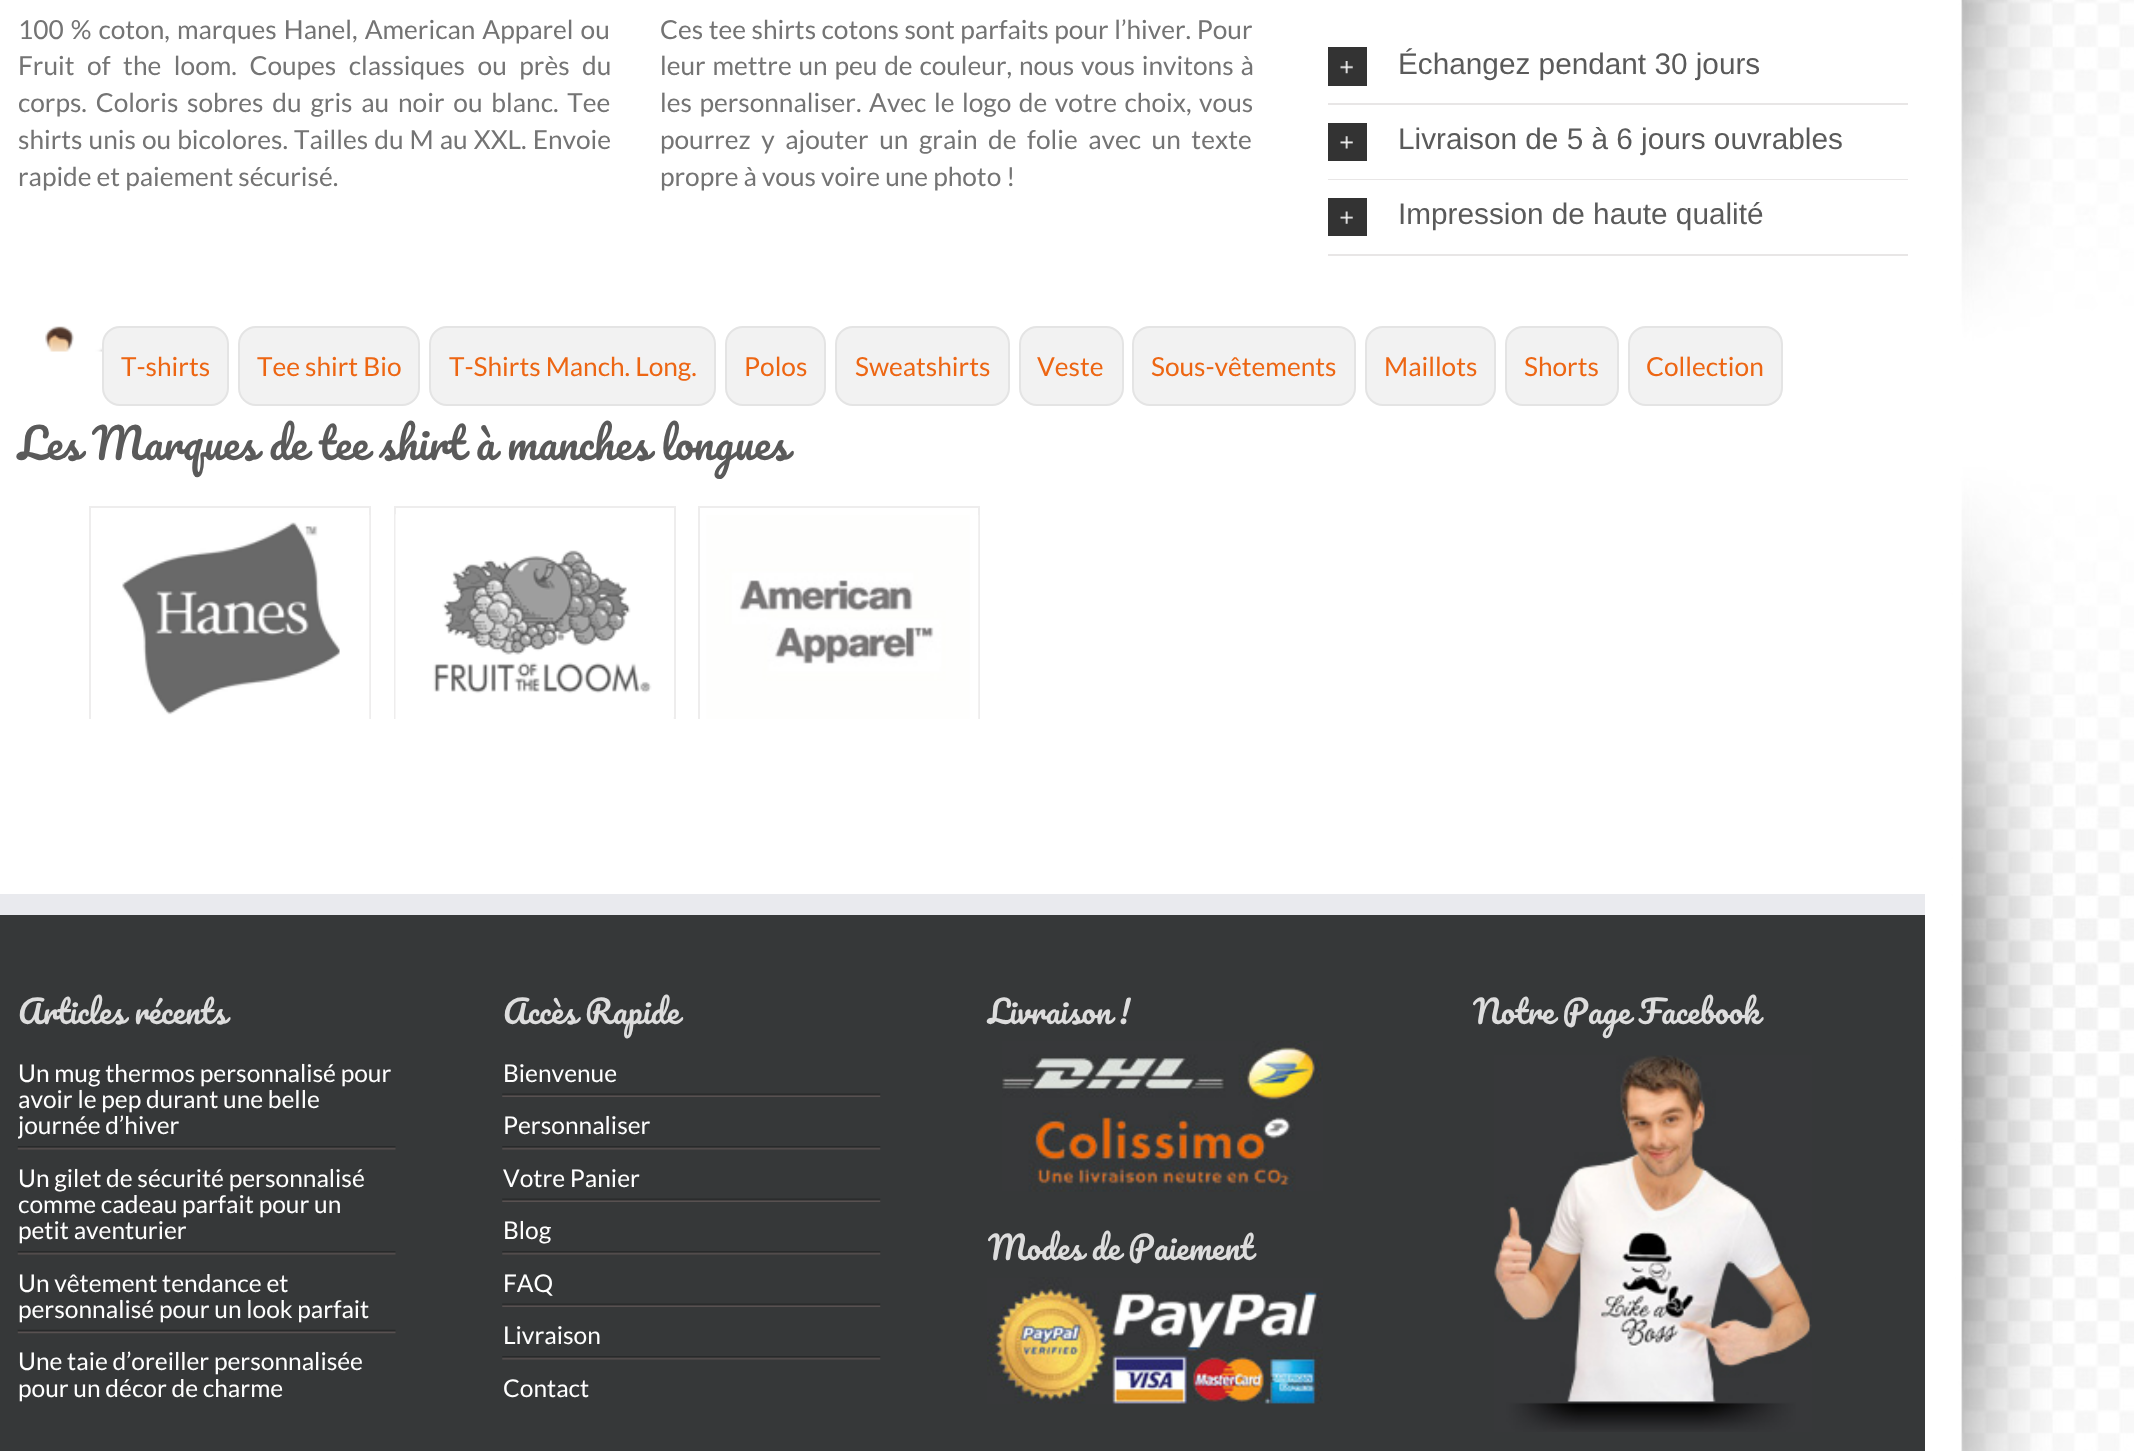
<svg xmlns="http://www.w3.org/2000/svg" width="2134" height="1451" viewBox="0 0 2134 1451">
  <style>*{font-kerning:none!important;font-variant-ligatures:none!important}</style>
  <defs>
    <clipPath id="clip1"><rect x="18" y="991" width="1890" height="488"/></clipPath>
  </defs>
  <rect width="100%" height="100%" fill="#ffffff"/>
  <image x="1925" y="0" width="209" height="1451" href="img1.png"/>
  <text x="18" y="39" word-spacing="2" font-family="Lato" font-size="26.25" fill="#747474">100 % coton, marques Hanel, American Apparel ou</text>
  <text x="18" y="75" word-spacing="7.5" font-family="Lato" font-size="26.25" fill="#747474">Fruit of the loom. Coupes classiques ou près du</text>
  <text x="18" y="112" word-spacing="3.75" font-family="Lato" font-size="26.25" fill="#747474">corps. Coloris sobres du gris au noir ou blanc. Tee</text>
  <text x="18" y="149" word-spacing="1" font-family="Lato" font-size="26.25" fill="#747474">shirts unis ou bicolores. Tailles du M au XXL. Envoie</text>
  <text x="18" y="186" font-family="Lato" font-size="26.25" fill="#747474">rapide et paiement sécurisé.</text>
  <text x="660" y="39" word-spacing="0.5" font-family="Lato" font-size="26.25" fill="#747474">Ces tee shirts cotons sont parfaits pour l’hiver. Pour</text>
  <text x="660" y="75" word-spacing="1.75" font-family="Lato" font-size="26.25" fill="#747474">leur mettre un peu de couleur, nous vous invitons à</text>
  <text x="660" y="112" word-spacing="2.5" font-family="Lato" font-size="26.25" fill="#747474">les personnaliser. Avec le logo de votre choix, vous</text>
  <text x="660" y="149" word-spacing="5.5" font-family="Lato" font-size="26.25" fill="#747474">pourrez y ajouter un grain de folie avec un texte</text>
  <text x="660" y="186" font-family="Lato" font-size="26.25" fill="#747474">propre à vous voire une photo !</text>
  <rect x="1328" y="103" width="580" height="2" fill="#e8e6e6"/>
  <rect x="1328" y="47" width="39" height="39" fill="#333333"/>
  <image x="1340" y="61" width="13" height="13" href="img2.png"/>
  <text x="1398" y="74" font-family="Liberation Sans" font-size="29.75" fill="#5a5a5a">Échangez pendant 30 jours</text>
  <rect x="1328" y="179" width="580" height="1" fill="#e8e6e6"/>
  <rect x="1328" y="123" width="39" height="38" fill="#333333"/>
  <image x="1340" y="136" width="13" height="13" href="img3.png"/>
  <text x="1398" y="149" font-family="Liberation Sans" font-size="29.75" fill="#5a5a5a">Livraison de 5 à 6 jours ouvrables</text>
  <rect x="1328" y="254" width="580" height="2" fill="#e8e6e6"/>
  <rect x="1328" y="198" width="39" height="38" fill="#333333"/>
  <image x="1340" y="211" width="13" height="13" href="img4.png"/>
  <text x="1398" y="224" font-family="Liberation Sans" font-size="29.75" fill="#5a5a5a">Impression de haute qualité</text>
  <image x="45" y="326" width="74" height="26" href="img5.png"/>
  <rect x="103" y="327" width="125" height="78" rx="17" fill="#f2f2f2" stroke="#e4e4e4" stroke-width="2"/>
  <text x="121" y="376" font-family="Lato" font-size="26.25" fill="#ed6613">T-shirts</text>
  <rect x="239" y="327" width="180" height="78" rx="17" fill="#f2f2f2" stroke="#e4e4e4" stroke-width="2"/>
  <text x="257" y="376" font-family="Lato" font-size="26.25" fill="#ed6613">Tee shirt Bio</text>
  <rect x="430" y="327" width="285" height="78" rx="17" fill="#f2f2f2" stroke="#e4e4e4" stroke-width="2"/>
  <text x="449" y="376" font-family="Lato" font-size="26.25" fill="#ed6613">T-Shirts Manch. Long.</text>
  <rect x="726" y="327" width="99" height="78" rx="17" fill="#f2f2f2" stroke="#e4e4e4" stroke-width="2"/>
  <text x="744" y="376" font-family="Lato" font-size="26.25" fill="#ed6613">Polos</text>
  <rect x="836" y="327" width="173" height="78" rx="17" fill="#f2f2f2" stroke="#e4e4e4" stroke-width="2"/>
  <text x="855" y="376" font-family="Lato" font-size="26.25" fill="#ed6613">Sweatshirts</text>
  <rect x="1020" y="327" width="103" height="78" rx="17" fill="#f2f2f2" stroke="#e4e4e4" stroke-width="2"/>
  <text x="1037" y="376" font-family="Lato" font-size="26.25" fill="#ed6613">Veste</text>
  <rect x="1133" y="327" width="222" height="78" rx="17" fill="#f2f2f2" stroke="#e4e4e4" stroke-width="2"/>
  <text x="1151" y="376" font-family="Lato" font-size="26.25" fill="#ed6613">Sous-vêtements</text>
  <rect x="1366" y="327" width="129" height="78" rx="17" fill="#f2f2f2" stroke="#e4e4e4" stroke-width="2"/>
  <text x="1384" y="376" font-family="Lato" font-size="26.25" fill="#ed6613">Maillots</text>
  <rect x="1506" y="327" width="112" height="78" rx="17" fill="#f2f2f2" stroke="#e4e4e4" stroke-width="2"/>
  <text x="1524" y="376" font-family="Lato" font-size="26.25" fill="#ed6613">Shorts</text>
  <rect x="1629" y="327" width="153" height="78" rx="17" fill="#f2f2f2" stroke="#e4e4e4" stroke-width="2"/>
  <text x="1646" y="376" font-family="Lato" font-size="26.25" fill="#ed6613">Collection</text>
  <text x="18" y="460" word-spacing="0.25" font-family="Pacifico" font-size="42" fill="#5a5a5a">Les Marques de tee shirt à manches longues</text>
  <rect x="90" y="507" width="280" height="211" fill="none" stroke="#eeeded" stroke-width="2"/>
  <image x="91" y="515" width="279" height="204" href="img6.png"/>
  <rect x="395" y="507" width="280" height="211" fill="none" stroke="#eeeded" stroke-width="2"/>
  <image x="395" y="514" width="279" height="205" href="img7.png"/>
  <rect x="699" y="507" width="280" height="211" fill="none" stroke="#eeeded" stroke-width="2"/>
  <image x="700" y="515" width="279" height="204" href="img8.png"/>
  <rect x="0" y="915" width="1925" height="536" fill="#363839"/>
  <rect x="0" y="894" width="1925" height="21" fill="#e9eaee"/>
  <text x="18" y="1024" word-spacing="1" font-family="Pacifico" font-size="31.5" fill="#dddddd">Articles récents</text>
  <text x="18" y="1082" font-family="Lato" font-size="24.5" fill="#ffffff">Un mug thermos personnalisé pour</text>
  <text x="18" y="1108" font-family="Lato" font-size="24.5" fill="#ffffff">avoir le pep durant une belle</text>
  <g clip-path="url(#clip1)">
    <text x="18" y="1134" font-family="Lato" font-size="24.5" fill="#ffffff">journée d’hiver</text>
  </g>
  <image x="17" y="1146" width="379" height="4" href="img9.png"/>
  <text x="18" y="1187" font-family="Lato" font-size="24.5" fill="#ffffff">Un gilet de sécurité personnalisé</text>
  <text x="18" y="1213" font-family="Lato" font-size="24.5" fill="#ffffff">comme cadeau parfait pour un</text>
  <text x="18" y="1239" font-family="Lato" font-size="24.5" fill="#ffffff">petit aventurier</text>
  <image x="17" y="1251" width="379" height="4" href="img9.png"/>
  <text x="18" y="1292" font-family="Lato" font-size="24.5" fill="#ffffff">Un vêtement tendance et</text>
  <text x="18" y="1318" font-family="Lato" font-size="24.5" fill="#ffffff">personnalisé pour un look parfait</text>
  <image x="17" y="1329" width="379" height="5" href="img10.png"/>
  <text x="18" y="1370" font-family="Lato" font-size="24.5" fill="#ffffff">Une taie d’oreiller personnalisée</text>
  <text x="18" y="1397" font-family="Lato" font-size="24.5" fill="#ffffff">pour un décor de charme</text>
  <text x="503" y="1024" font-family="Pacifico" font-size="31.5" fill="#dddddd">Accès Rapide</text>
  <text x="503" y="1082" font-family="Lato" font-size="24.5" fill="#ffffff">Bienvenue</text>
  <image x="502" y="1093" width="379" height="4" href="img11.png"/>
  <text x="503" y="1134" font-family="Lato" font-size="24.5" fill="#ffffff">Personnaliser</text>
  <image x="502" y="1146" width="379" height="4" href="img12.png"/>
  <text x="503" y="1187" font-family="Lato" font-size="24.5" fill="#ffffff">Votre Panier</text>
  <image x="502" y="1198" width="379" height="4" href="img11.png"/>
  <text x="503" y="1239" font-family="Lato" font-size="24.5" fill="#ffffff">Blog</text>
  <image x="502" y="1251" width="379" height="4" href="img12.png"/>
  <text x="503" y="1292" font-family="Lato" font-size="24.5" fill="#ffffff">FAQ</text>
  <image x="502" y="1303" width="379" height="4" href="img11.png"/>
  <text x="503" y="1344" font-family="Lato" font-size="24.5" fill="#ffffff">Livraison</text>
  <image x="502" y="1356" width="379" height="4" href="img12.png"/>
  <text x="503" y="1397" font-family="Lato" font-size="24.5" fill="#ffffff">Contact</text>
  <text x="988" y="1024" font-family="Pacifico" font-size="31.5" fill="#dddddd">Livraison !</text>
  <image x="1002" y="1041" width="321" height="151" href="img13.png"/>
  <text x="988" y="1260" font-family="Pacifico" font-size="31.5" fill="#dddddd">Modes de Paiement</text>
  <image x="987" y="1277" width="336" height="127" href="img14.png"/>
  <text x="1473" y="1024" font-family="Pacifico" font-size="31.5" fill="#dddddd">Notre Page Facebook</text>
  <image x="1494" y="1055" width="318" height="377" href="img15.png"/>
</svg>
